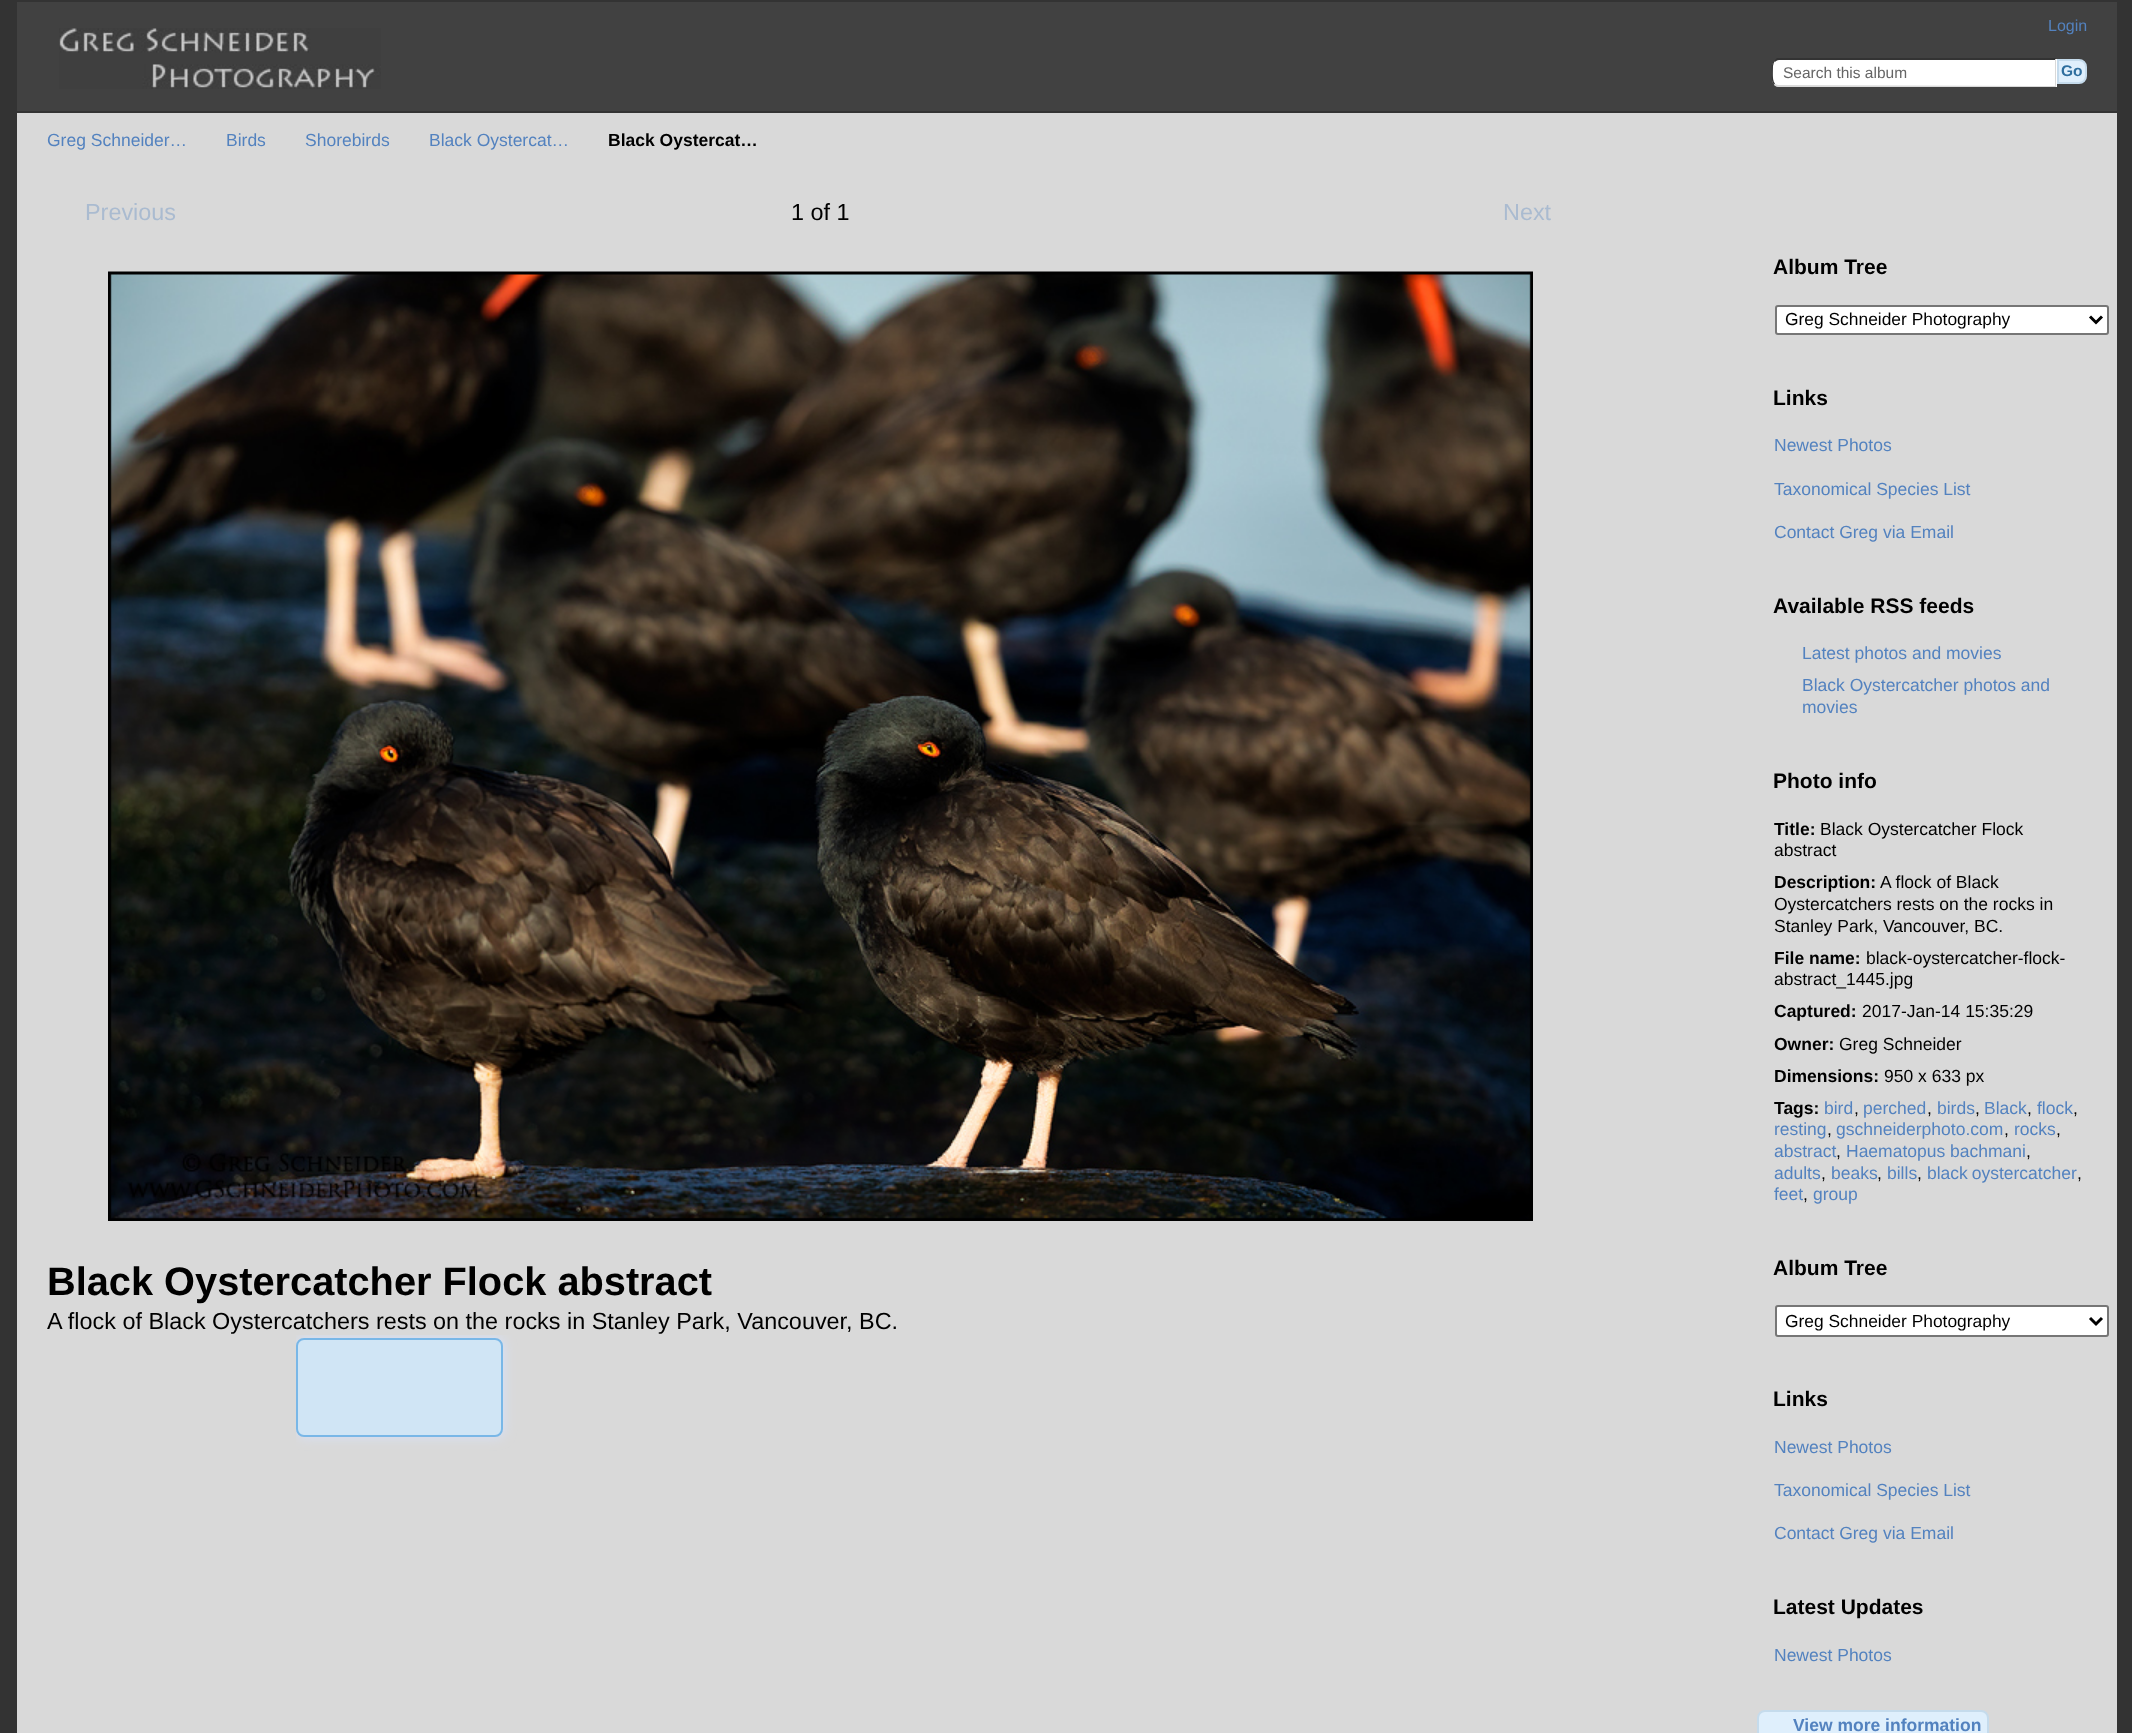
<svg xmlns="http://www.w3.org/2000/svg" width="2132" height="1733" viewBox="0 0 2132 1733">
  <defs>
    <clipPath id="clip1"><rect x="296" y="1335" width="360" height="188"/></clipPath>
    <filter id="blur1" x="-50%" y="-200%" width="200%" height="500%"><feGaussianBlur stdDeviation="6"/></filter>
  </defs>
  <rect width="100%" height="100%" fill="#333333"/>
  <rect x="17" y="113" width="2100" height="1620" fill="#d9d9d9"/>
  <rect x="17" y="2" width="2100" height="109" fill="#414141"/>
  <image x="59" y="28" width="322" height="61" href="img1.png"/>
  <text x="2048" y="31" font-family="Liberation Sans" font-size="16" fill="#5382bf">Login</text>
  <path d="M1780 59H2057V87H1780C1775.5 87 1772 83.5 1772 79V67C1772 62.5 1775.5 59 1780 59Z" fill="#ffffff"/>
  <path d="M1779 60C1777 60 1776 61 1775 62L1774 61L1777 58H2056L2055 60Z" fill="#333333"/>
  <path d="M2056 59V86.5L2055 85.5V60Z" fill="#d9d9d9"/>
  <path d="M1779 87H2056V86H2055L1778 85C1777 85 1776 84 1775 84L1774 85C1775 86 1777 87 1779 87Z" fill="#d9d9d9"/>
  <path d="M1774 84.5C1771 81.5 1772 76.5 1772 73C1772 69 1771 64 1774 61L1774.5 61.5C1773.5 63 1773.5 64.5 1773 66C1773 68.5 1772.5 78 1773.5 80.5C1773.5 81.5 1774 82.5 1775 83.5Z" fill="#333333"/>
  <text x="1783" y="78" font-family="Liberation Sans" font-size="15.5" fill="#666666">Search this album</text>
  <path d="M2058 60H2079C2083 60 2086 63 2086 67V76C2086 80 2083 83 2079 83H2058Z" fill="#dfeffc" stroke="#c5dbec" stroke-width="2"/>
  <text x="2061" y="76" font-family="Liberation Sans" font-size="15.5" font-weight="bold" fill="#2e6e9e">Go</text>
  <text x="47" y="146" font-family="Liberation Sans" font-size="17.5" fill="#5382bf">Greg Schneider…</text>
  <text x="226" y="146" font-family="Liberation Sans" font-size="17.5" fill="#5382bf">Birds</text>
  <text x="305" y="146" font-family="Liberation Sans" font-size="17.5" fill="#5382bf">Shorebirds</text>
  <text x="429" y="146" font-family="Liberation Sans" font-size="17.5" fill="#5382bf">Black Oystercat…</text>
  <text x="608" y="146" font-family="Liberation Sans" font-size="17.5" font-weight="bold" fill="#000000">Black Oystercat…</text>
  <text x="85" y="220" font-family="Liberation Sans" font-size="23.4" fill="#aabbd0">Previous</text>
  <text x="791" y="220" font-family="Liberation Sans" font-size="23.4" fill="#000000">1 of 1</text>
  <text x="1503" y="220" font-family="Liberation Sans" font-size="23.4" fill="#aabbd0">Next</text>
  <image x="108" y="271" width="1425" height="950" href="img2.png"/>
  <text x="47" y="1295" font-family="Liberation Sans" font-size="39.75" font-weight="bold" fill="#000000">Black Oystercatcher Flock abstract</text>
  <text x="47" y="1329" font-family="Liberation Sans" font-size="23.4" fill="#000000">A flock of Black Oystercatchers rests on the rocks in Stanley Park, Vancouver, BC.</text>
  <g clip-path="url(#clip1)">
    <rect x="297" y="1338" width="207" height="99" rx="8" fill="#d7e1fa" filter="url(#blur1)"/>
  </g>
  <rect x="297" y="1339" width="205" height="97" rx="7" fill="#d0e5f5" stroke="#79b7e7" stroke-width="2"/>
  <text x="1773" y="274" font-family="Liberation Sans" font-size="21" font-weight="bold" fill="#000000">Album Tree</text>
  <rect x="1776" y="306" width="332" height="28" rx="2" fill="#ffffff" stroke="#767676" stroke-width="2"/>
  <path d="M2090 316.5L2096 322.5L2102 316.5" fill="none" stroke="#000000" stroke-width="3"/>
  <text x="1785" y="325" font-family="Liberation Sans" font-size="17.4" fill="#000000">Greg Schneider Photography</text>
  <text x="1773" y="405" font-family="Liberation Sans" font-size="21" font-weight="bold" fill="#000000">Links</text>
  <text x="1774" y="451" font-family="Liberation Sans" font-size="17.5" fill="#5382bf">Newest Photos</text>
  <text x="1774" y="495" font-family="Liberation Sans" font-size="17.5" fill="#5382bf">Taxonomical Species List</text>
  <text x="1774" y="538" font-family="Liberation Sans" font-size="17.5" fill="#5382bf">Contact Greg via Email</text>
  <text x="1773" y="613" font-family="Liberation Sans" font-size="21" font-weight="bold" fill="#000000">Available RSS feeds</text>
  <text x="1802" y="659" font-family="Liberation Sans" font-size="17.5" fill="#5382bf">Latest photos and movies</text>
  <text x="1802" y="691" font-family="Liberation Sans" font-size="17.5" fill="#5382bf">Black Oystercatcher photos and</text>
  <text x="1802" y="713" font-family="Liberation Sans" font-size="17.5" fill="#5382bf">movies</text>
  <text x="1773" y="788" font-family="Liberation Sans" font-size="21" font-weight="bold" fill="#000000">Photo info</text>
  <text x="1774" y="835" font-family="Liberation Sans" font-size="17.5" font-weight="bold" fill="#000000">Title:</text>
  <text x="1820" y="835" font-family="Liberation Sans" font-size="17.5" fill="#000000">Black Oystercatcher Flock</text>
  <text x="1774" y="856" font-family="Liberation Sans" font-size="17.5" fill="#000000">abstract</text>
  <text x="1774" y="888" font-family="Liberation Sans" font-size="17.5" font-weight="bold" fill="#000000">Description:</text>
  <text x="1880" y="888" font-family="Liberation Sans" font-size="17.5" fill="#000000">A flock of Black</text>
  <text x="1774" y="910" font-family="Liberation Sans" font-size="17.5" fill="#000000">Oystercatchers rests on the rocks in</text>
  <text x="1774" y="932" font-family="Liberation Sans" font-size="17.5" fill="#000000">Stanley Park, Vancouver, BC.</text>
  <text x="1774" y="964" font-family="Liberation Sans" font-size="17.5" font-weight="bold" fill="#000000">File name:</text>
  <text x="1866" y="964" font-family="Liberation Sans" font-size="17.5" fill="#000000">black-oystercatcher-flock-</text>
  <text x="1774" y="985" font-family="Liberation Sans" font-size="17.5" fill="#000000">abstract_1445.jpg</text>
  <text x="1774" y="1017" font-family="Liberation Sans" font-size="17.5" font-weight="bold" fill="#000000">Captured:</text>
  <text x="1862" y="1017" font-family="Liberation Sans" font-size="17.5" fill="#000000">2017-Jan-14 15:35:29</text>
  <text x="1774" y="1050" font-family="Liberation Sans" font-size="17.5" font-weight="bold" fill="#000000">Owner:</text>
  <text x="1839" y="1050" font-family="Liberation Sans" font-size="17.5" fill="#000000">Greg Schneider</text>
  <text x="1774" y="1082" font-family="Liberation Sans" font-size="17.5" font-weight="bold" fill="#000000">Dimensions:</text>
  <text x="1884" y="1082" font-family="Liberation Sans" font-size="17.5" fill="#000000">950 x 633 px</text>
  <text x="1774" y="1114" font-family="Liberation Sans" font-size="17.5" font-weight="bold" fill="#000000">Tags:</text>
  <text x="1824" y="1114" font-family="Liberation Sans" font-size="17.5" fill="#5382bf">bird</text>
  <text x="1854" y="1114" font-family="Liberation Sans" font-size="17.5" fill="#000000">,</text>
  <text x="1863" y="1114" font-family="Liberation Sans" font-size="17.5" fill="#5382bf">perched</text>
  <text x="1927" y="1114" font-family="Liberation Sans" font-size="17.5" fill="#000000">,</text>
  <text x="1937" y="1114" font-family="Liberation Sans" font-size="17.5" fill="#5382bf">birds</text>
  <text x="1975" y="1114" font-family="Liberation Sans" font-size="17.5" fill="#000000">,</text>
  <text x="1984" y="1114" font-family="Liberation Sans" font-size="17.5" fill="#5382bf">Black</text>
  <text x="2027" y="1114" font-family="Liberation Sans" font-size="17.5" fill="#000000">,</text>
  <text x="2037" y="1114" font-family="Liberation Sans" font-size="17.5" fill="#5382bf">flock</text>
  <text x="2073" y="1114" font-family="Liberation Sans" font-size="17.5" fill="#000000">,</text>
  <text x="1774" y="1135" font-family="Liberation Sans" font-size="17.5" fill="#5382bf">resting</text>
  <text x="1827" y="1135" font-family="Liberation Sans" font-size="17.5" fill="#000000">,</text>
  <text x="1836" y="1135" font-family="Liberation Sans" font-size="17.5" fill="#5382bf">gschneiderphoto.com</text>
  <text x="2004" y="1135" font-family="Liberation Sans" font-size="17.5" fill="#000000">,</text>
  <text x="2014" y="1135" font-family="Liberation Sans" font-size="17.5" fill="#5382bf">rocks</text>
  <text x="2056" y="1135" font-family="Liberation Sans" font-size="17.5" fill="#000000">,</text>
  <text x="1774" y="1157" font-family="Liberation Sans" font-size="17.5" fill="#5382bf">abstract</text>
  <text x="1836" y="1157" font-family="Liberation Sans" font-size="17.5" fill="#000000">,</text>
  <text x="1846" y="1157" font-family="Liberation Sans" font-size="17.5" fill="#5382bf">Haematopus bachmani</text>
  <text x="2026" y="1157" font-family="Liberation Sans" font-size="17.5" fill="#000000">,</text>
  <text x="1774" y="1179" font-family="Liberation Sans" font-size="17.5" fill="#5382bf">adults</text>
  <text x="1821" y="1179" font-family="Liberation Sans" font-size="17.5" fill="#000000">,</text>
  <text x="1831" y="1179" font-family="Liberation Sans" font-size="17.5" fill="#5382bf">beaks</text>
  <text x="1877" y="1179" font-family="Liberation Sans" font-size="17.5" fill="#000000">,</text>
  <text x="1887" y="1179" font-family="Liberation Sans" font-size="17.5" fill="#5382bf">bills</text>
  <text x="1917" y="1179" font-family="Liberation Sans" font-size="17.5" fill="#000000">,</text>
  <text x="1927" y="1179" word-spacing="-1" font-family="Liberation Sans" font-size="17.5" fill="#5382bf">black oystercatcher</text>
  <text x="2077" y="1179" font-family="Liberation Sans" font-size="17.5" fill="#000000">,</text>
  <text x="1774" y="1200" font-family="Liberation Sans" font-size="17.5" fill="#5382bf">feet</text>
  <text x="1803" y="1200" font-family="Liberation Sans" font-size="17.5" fill="#000000">,</text>
  <text x="1813" y="1200" font-family="Liberation Sans" font-size="17.5" fill="#5382bf">group</text>
  <text x="1773" y="1275" font-family="Liberation Sans" font-size="21" font-weight="bold" fill="#000000">Album Tree</text>
  <rect x="1776" y="1306" width="332" height="30" rx="2" fill="#ffffff" stroke="#767676" stroke-width="2"/>
  <path d="M2090 1318L2096 1324L2102 1318" fill="none" stroke="#000000" stroke-width="3"/>
  <text x="1785" y="1327" font-family="Liberation Sans" font-size="17.4" fill="#000000">Greg Schneider Photography</text>
  <text x="1773" y="1406" font-family="Liberation Sans" font-size="21" font-weight="bold" fill="#000000">Links</text>
  <text x="1774" y="1453" font-family="Liberation Sans" font-size="17.5" fill="#5382bf">Newest Photos</text>
  <text x="1774" y="1496" font-family="Liberation Sans" font-size="17.5" fill="#5382bf">Taxonomical Species List</text>
  <text x="1774" y="1539" font-family="Liberation Sans" font-size="17.5" fill="#5382bf">Contact Greg via Email</text>
  <text x="1773" y="1614" font-family="Liberation Sans" font-size="21" font-weight="bold" fill="#000000">Latest Updates</text>
  <text x="1774" y="1661" font-family="Liberation Sans" font-size="17.5" fill="#5382bf">Newest Photos</text>
  <rect x="1758" y="1711" width="230" height="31" rx="7" fill="#dfeffc" stroke="#c5dbec" stroke-width="2"/>
  <text x="1793" y="1731" font-family="Liberation Sans" font-size="17.5" font-weight="bold" fill="#5382bf">View more information</text>
</svg>
